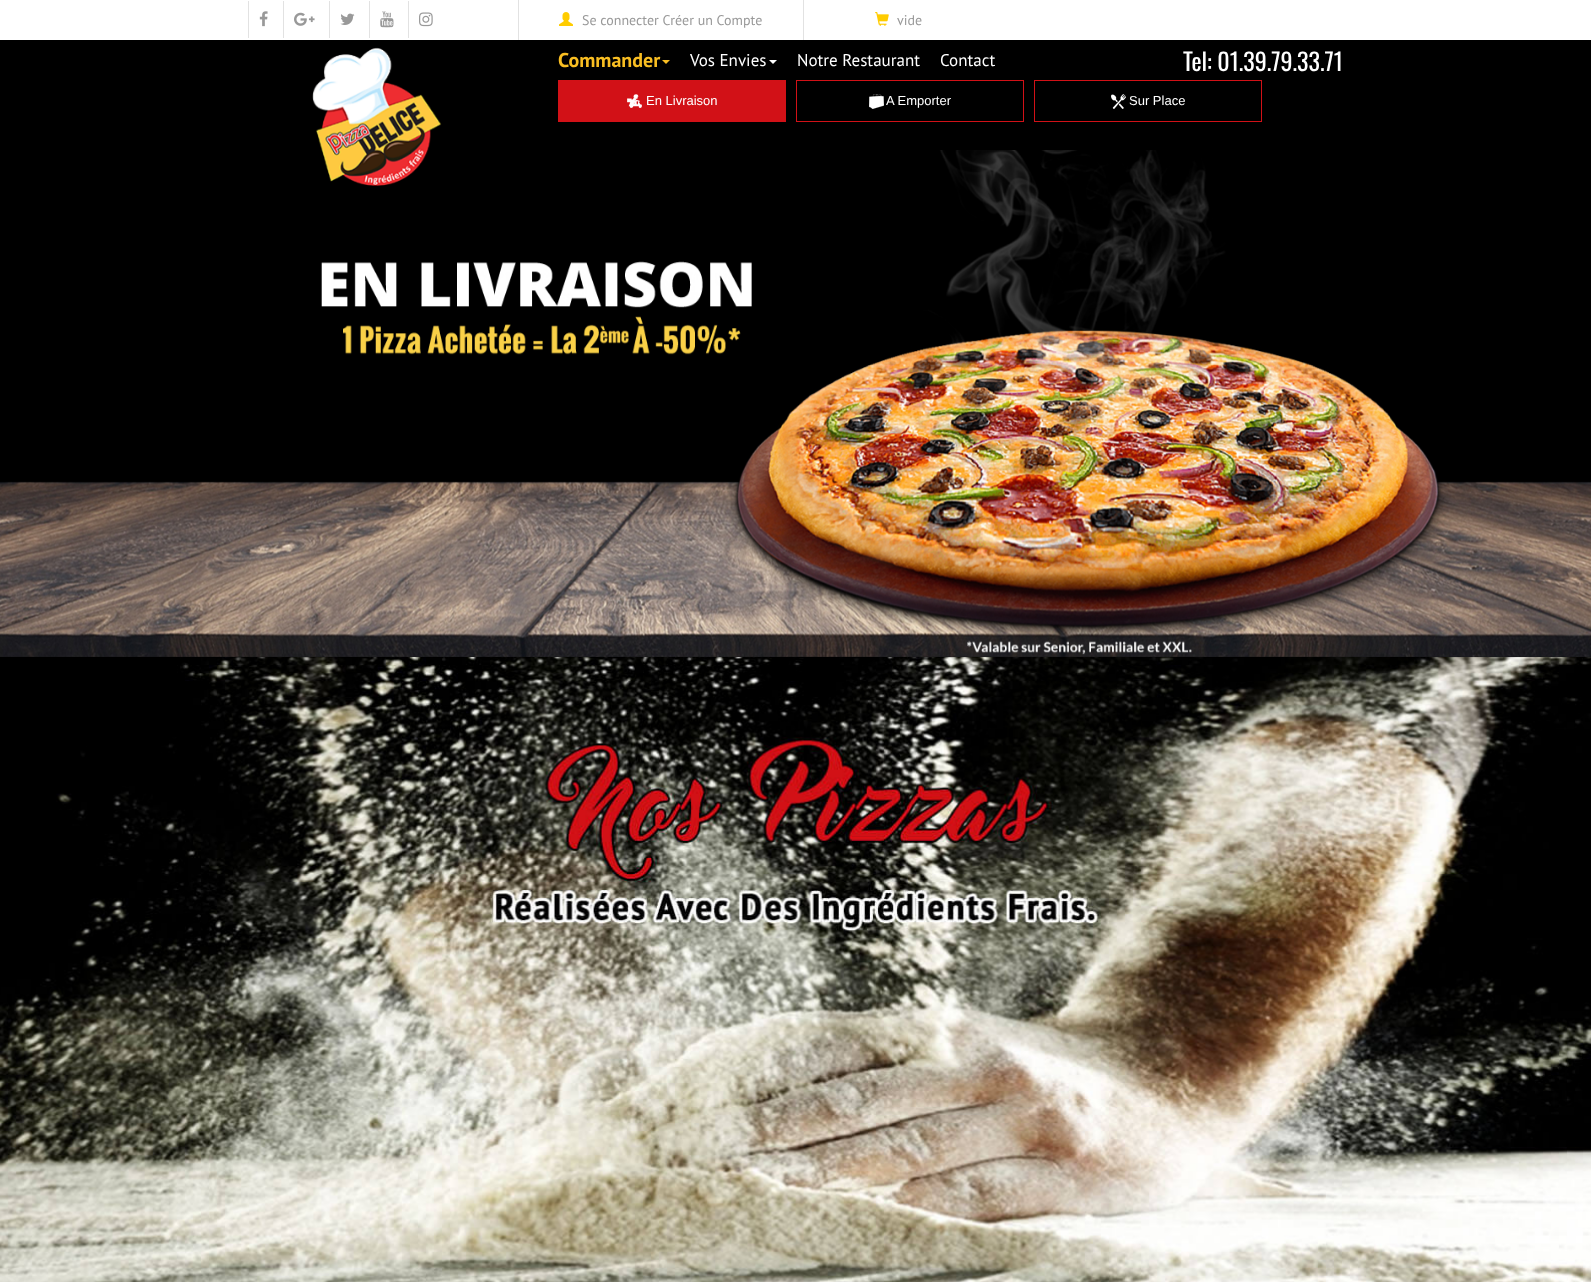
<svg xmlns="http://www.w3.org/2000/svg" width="1591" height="1282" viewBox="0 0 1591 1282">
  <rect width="100%" height="100%" fill="#000000"/>
  <rect x="0" y="0" width="1591" height="40" fill="#ffffff"/>
  <rect x="248" y="1" width="1" height="37" fill="#e2e2e2"/>
  <image x="259" y="11" width="9" height="16" href="img1.png"/>
  <rect x="283" y="1" width="1" height="37" fill="#e2e2e2"/>
  <image x="294" y="12" width="21" height="14" href="img2.png"/>
  <rect x="329" y="1" width="1" height="37" fill="#e2e2e2"/>
  <image x="340" y="13" width="15" height="12" href="img3.png"/>
  <rect x="369" y="1" width="1" height="37" fill="#e2e2e2"/>
  <image x="380" y="11" width="14" height="17" href="img4.png"/>
  <rect x="408" y="1" width="1" height="37" fill="#e2e2e2"/>
  <image x="419" y="12" width="14" height="15" href="img5.png"/>
  <rect x="518" y="0" width="1" height="40" fill="#e2e2e2"/>
  <image x="559" y="12" width="14" height="14" href="img6.png"/>
  <text x="582" y="25" font-family="PT Sans" font-size="14" fill="#999999">Se connecter Créer un Compte</text>
  <rect x="803" y="0" width="1" height="40" fill="#e2e2e2"/>
  <image x="875" y="12" width="14" height="14" href="img7.png"/>
  <text x="897" y="25" font-family="PT Sans" font-size="14" fill="#999999">vide</text>
  <image x="0" y="150" width="1591" height="507" href="img12.png"/>
  <image x="312" y="47" width="130" height="139" href="img8.png"/>
  <text x="558" y="67" font-family="PT Sans" font-size="20" font-weight="bold" fill="#f9be22">Commander</text>
  <path d="M662 60H670L666 64Z" fill="#f9be22"/>
  <text x="690" y="66" font-family="PT Sans" font-size="17" fill="#ffffff">Vos Envies</text>
  <path d="M769 60H777L773 64Z" fill="#ffffff"/>
  <text x="797" y="66" font-family="PT Sans" font-size="17" fill="#ffffff">Notre Restaurant</text>
  <text x="940" y="66" font-family="PT Sans" font-size="17" fill="#ffffff">Contact</text>
  <text x="1183" y="71" font-family="Oswald" font-size="24" fill="#ffffff">Tel: 01.39.79.33.71</text>
  <rect x="558" y="80" width="228" height="42" fill="#d21117"/>
  <image x="627" y="94" width="15" height="14" href="img9.png"/>
  <text x="646" y="105" font-family="Liberation Sans" font-size="13" fill="#ffffff">En Livraison</text>
  <rect x="796.5" y="80.5" width="227" height="41" fill="none" stroke="#d21117"/>
  <image x="869" y="94" width="15" height="15" href="img10.png"/>
  <text x="886" y="105" font-family="Liberation Sans" font-size="13" fill="#ffffff">A Emporter</text>
  <rect x="1034.5" y="80.5" width="227" height="41" fill="none" stroke="#d21117"/>
  <image x="1111" y="94" width="15" height="15" href="img11.png"/>
  <text x="1129" y="105" font-family="Liberation Sans" font-size="13" fill="#ffffff">Sur Place</text>
  <image x="0" y="657" width="1591" height="625" href="img13.png"/>
</svg>
